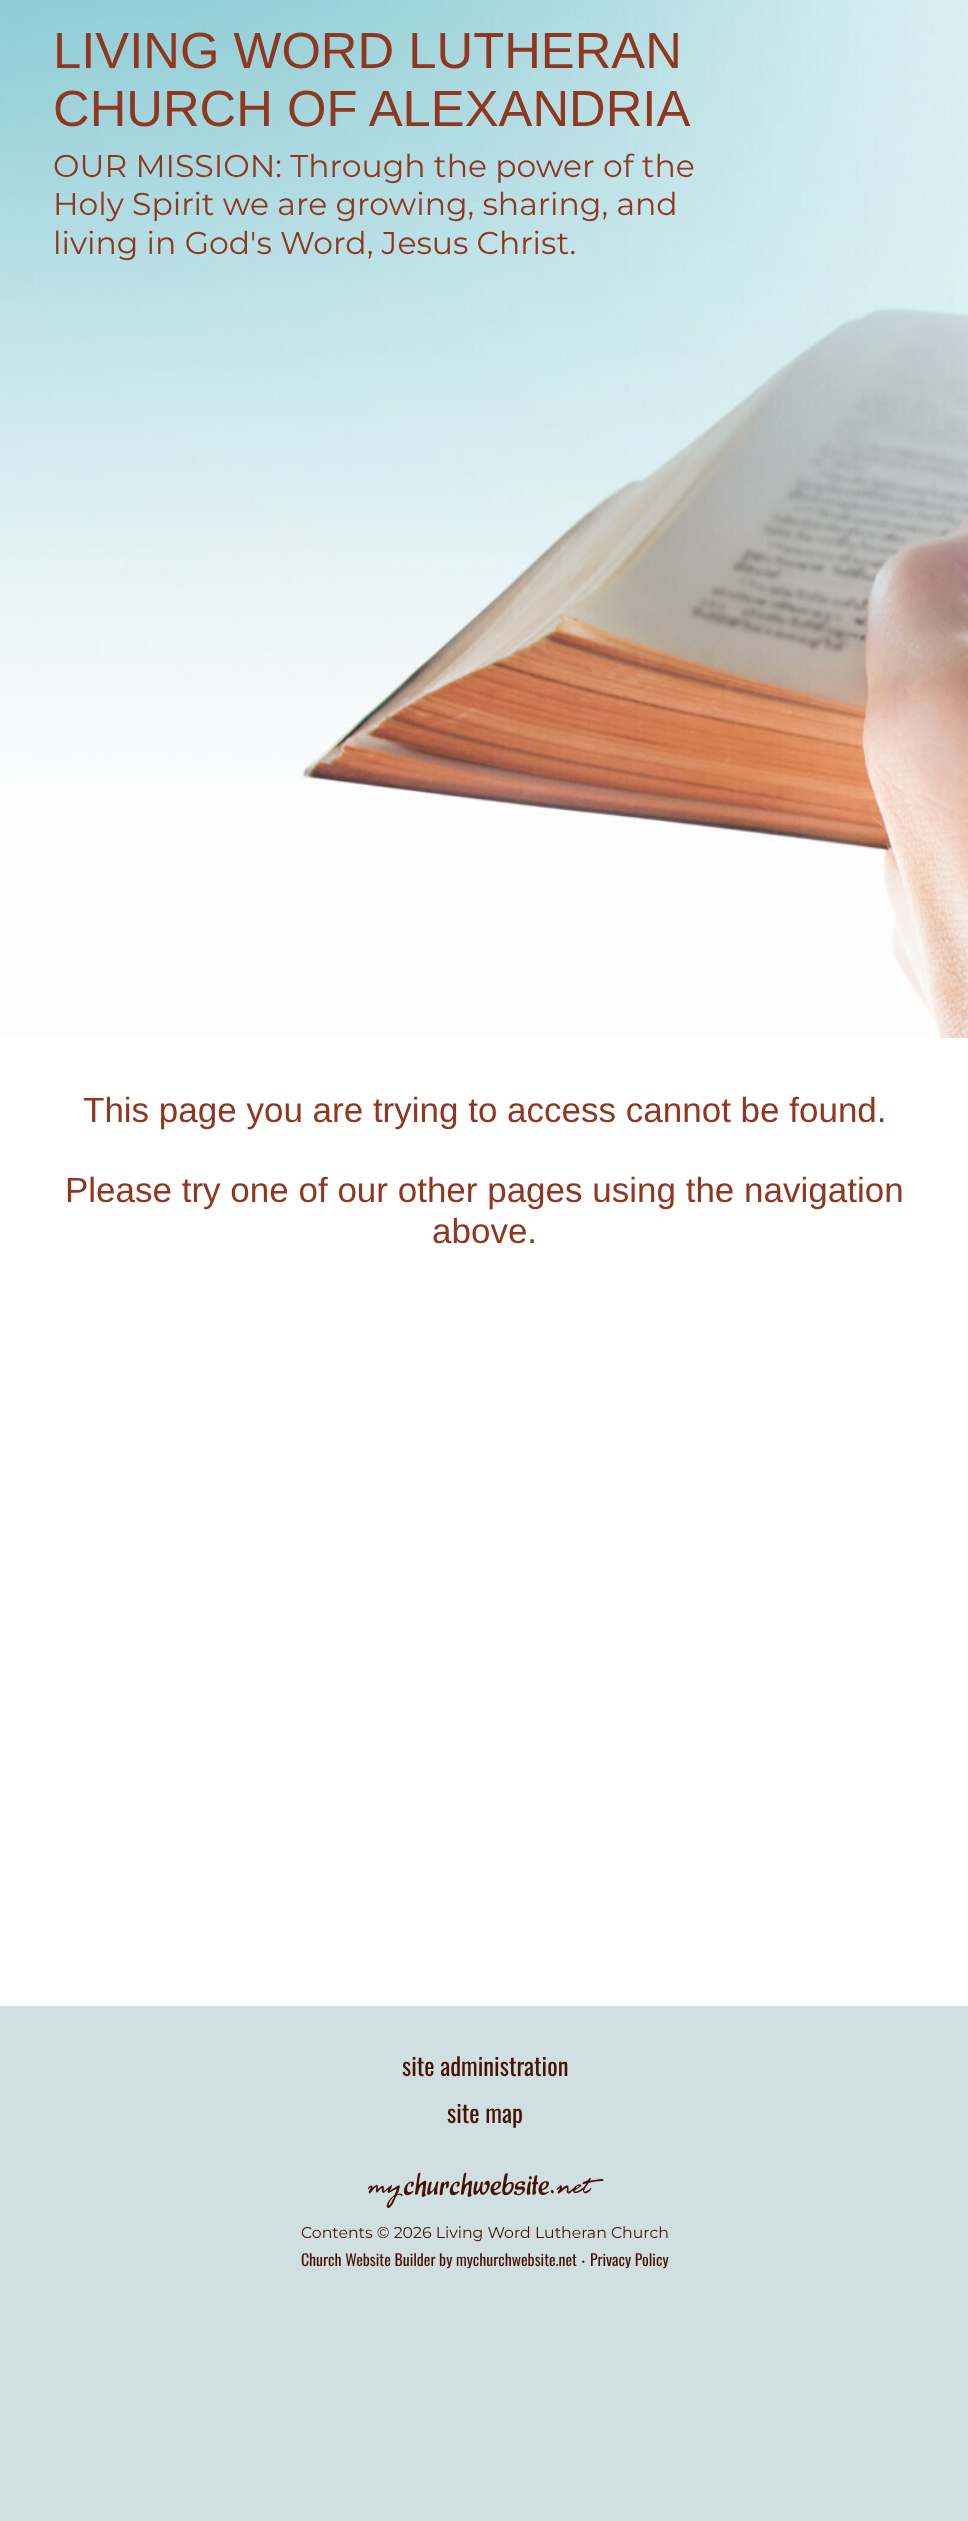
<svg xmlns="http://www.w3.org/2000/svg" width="968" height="2521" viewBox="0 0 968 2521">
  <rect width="100%" height="100%" fill="#ffffff"/>
  <image x="0" y="0" width="968" height="1038" href="img1.png"/>
  <text x="53" y="68" font-family="Liberation Sans" font-size="50.75" fill="#8f371f">LIVING WORD LUTHERAN</text>
  <text x="53" y="126" font-family="Liberation Sans" font-size="50.75" fill="#8f371f">CHURCH OF ALEXANDRIA</text>
  <text x="53" y="177" font-family="Montserrat" font-size="31.5" fill="#8f371f">OUR MISSION: Through the power of the</text>
  <text x="53" y="215" font-family="Montserrat" font-size="31.5" fill="#8f371f">Holy Spirit we are growing, sharing, and</text>
  <text x="53" y="254" font-family="Montserrat" font-size="31.5" fill="#8f371f">living in God's Word, Jesus Christ.</text>
  <text x="83" y="1122" font-family="Liberation Sans" font-size="35" fill="#8f371f">This page you are trying to access cannot be found.</text>
  <text x="65" y="1202" font-family="Liberation Sans" font-size="35" fill="#8f371f">Please try one of our other pages using the navigation</text>
  <text x="432" y="1243" font-family="Liberation Sans" font-size="35" fill="#8f371f">above.</text>
  <rect x="0" y="2006" width="968" height="515" fill="#d0e0e0"/>
  <text x="402" y="2076" font-family="Oswald" font-size="24.5" fill="#481107">site administration</text>
  <text x="447" y="2123" font-family="Oswald" font-size="24.5" fill="#481107">site map</text>
  <image x="368" y="2172" width="236" height="36" href="img2.png"/>
  <text x="301" y="2238" font-family="Montserrat" font-size="15.75" fill="#481107">Contents © 2026 Living Word Lutheran Church</text>
  <text x="301" y="2266" font-family="Oswald" font-size="15.75" fill="#481107">Church Website Builder by mychurchwebsite.net</text>
  <text x="581" y="2266" font-family="Montserrat" font-size="15.75" fill="#481107">•</text>
  <text x="590" y="2266" font-family="Oswald" font-size="15.75" fill="#481107">Privacy Policy</text>
</svg>
